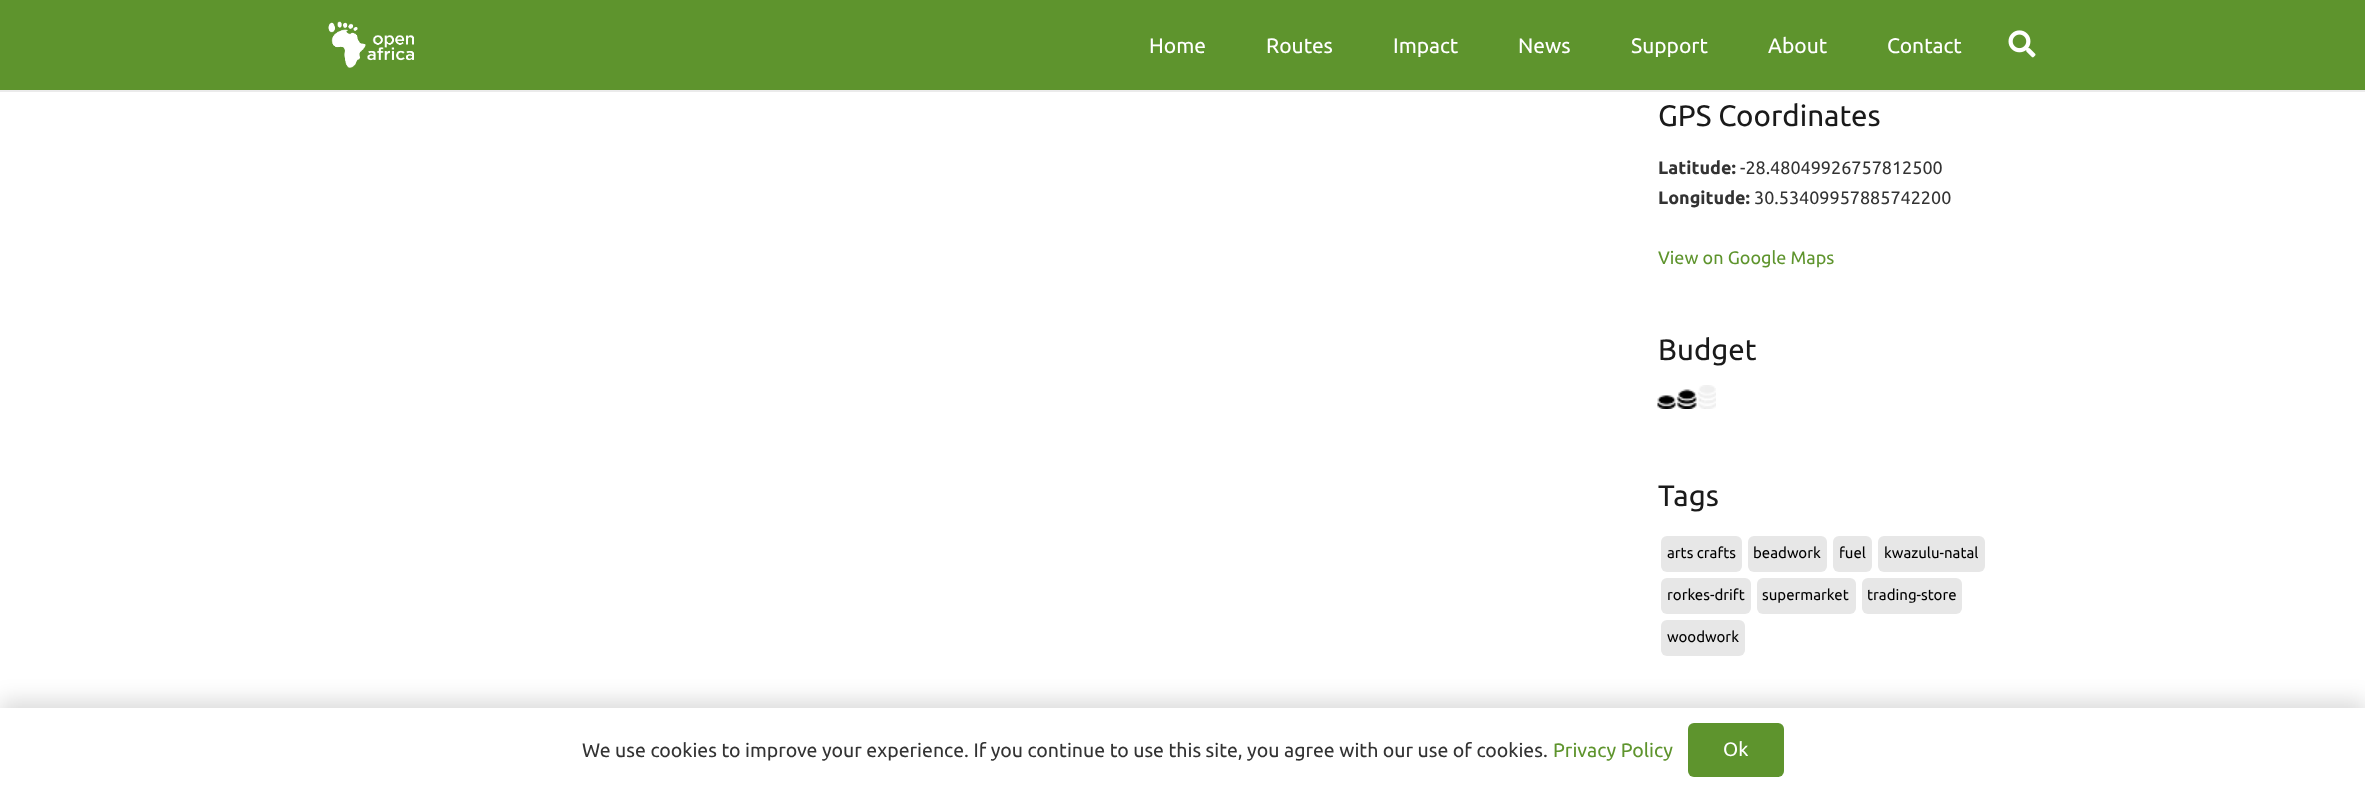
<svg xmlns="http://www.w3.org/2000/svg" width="2365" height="792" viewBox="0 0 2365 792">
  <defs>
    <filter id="blur1" x="-50%" y="-200%" width="200%" height="500%"><feGaussianBlur stdDeviation="11"/></filter>
  </defs>
  <rect width="100%" height="100%" fill="#ffffff"/>
  <path d="M0 90V92H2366V2V90Z" fill="#ebebeb"/>
  <rect x="0" y="0" width="2365" height="90" fill="#5e942d"/>
  <image x="328" y="21" width="86" height="47" href="img1.png"/>
  <text x="1149" y="53" font-family="Ubuntu" font-size="21" fill="#ffffff">Home</text>
  <text x="1266" y="53" font-family="Ubuntu" font-size="21" fill="#ffffff">Routes</text>
  <text x="1393" y="53" font-family="Ubuntu" font-size="21" fill="#ffffff">Impact</text>
  <text x="1518" y="53" font-family="Ubuntu" font-size="21" fill="#ffffff">News</text>
  <text x="1631" y="53" font-family="Ubuntu" font-size="21" fill="#ffffff">Support</text>
  <text x="1768" y="53" font-family="Ubuntu" font-size="21" fill="#ffffff">About</text>
  <text x="1887" y="53" font-family="Ubuntu" font-size="21" fill="#ffffff">Contact</text>
  <image x="2008" y="30" width="28" height="28" href="img2.png"/>
  <text x="1658" y="126" font-family="Ubuntu" font-size="29.5" fill="#1a1a1a">GPS Coordinates</text>
  <text x="1658" y="174" font-family="Ubuntu" font-size="18" font-weight="bold" fill="#333333">Latitude:</text>
  <text x="1740" y="174" font-family="Ubuntu" font-size="18" fill="#333333">-28.48049926757812500</text>
  <text x="1658" y="204" font-family="Ubuntu" font-size="18" font-weight="bold" fill="#333333">Longitude:</text>
  <text x="1754" y="204" font-family="Ubuntu" font-size="18" fill="#333333">30.53409957885742200</text>
  <text x="1658" y="264" font-family="Ubuntu" font-size="18" fill="#5e942d">View on Google Maps</text>
  <text x="1658" y="360" font-family="Ubuntu" font-size="29.5" fill="#1a1a1a">Budget</text>
  <image x="1657" y="385" width="59" height="24" href="img3.png"/>
  <text x="1658" y="506" font-family="Ubuntu" font-size="29.5" fill="#1a1a1a">Tags</text>
  <rect x="1661" y="536" width="81" height="36" rx="6" fill="#e7e7e7"/>
  <text x="1667" y="558" font-family="Ubuntu" font-size="15" fill="#000000">arts crafts</text>
  <rect x="1748" y="536" width="79" height="36" rx="6" fill="#e7e7e7"/>
  <text x="1753" y="558" font-family="Ubuntu" font-size="15" fill="#000000">beadwork</text>
  <rect x="1833" y="536" width="39" height="36" rx="6" fill="#e7e7e7"/>
  <text x="1839" y="558" font-family="Ubuntu" font-size="15" fill="#000000">fuel</text>
  <rect x="1878" y="536" width="107" height="36" rx="6" fill="#e7e7e7"/>
  <text x="1884" y="558" font-family="Ubuntu" font-size="15" fill="#000000">kwazulu-natal</text>
  <rect x="1661" y="578" width="90" height="36" rx="6" fill="#e7e7e7"/>
  <text x="1667" y="600" font-family="Ubuntu" font-size="15" fill="#000000">rorkes-drift</text>
  <rect x="1757" y="578" width="99" height="36" rx="6" fill="#e7e7e7"/>
  <text x="1762" y="600" font-family="Ubuntu" font-size="15" fill="#000000">supermarket</text>
  <rect x="1862" y="578" width="100" height="36" rx="6" fill="#e7e7e7"/>
  <text x="1867" y="600" font-family="Ubuntu" font-size="15" fill="#000000">trading-store</text>
  <rect x="1661" y="620" width="84" height="36" rx="6" fill="#e7e7e7"/>
  <text x="1667" y="642" font-family="Ubuntu" font-size="15" fill="#000000">woodwork</text>
  <rect x="0" y="701" width="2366" height="84" fill="#000000" fill-opacity="0.15" filter="url(#blur1)"/>
  <rect x="0" y="708" width="2365" height="84" fill="#ffffff"/>
  <text x="582" y="757" font-family="Ubuntu" font-size="19.5" fill="#333333">We use cookies to improve your experience. If you continue to use this site, you agree with our use of cookies.</text>
  <text x="1553" y="757" font-family="Ubuntu" font-size="19.5" fill="#5e942d">Privacy Policy</text>
  <rect x="1688" y="723" width="96" height="54" rx="6" fill="#5e942d"/>
  <text x="1723" y="756" font-family="Ubuntu" font-size="19.5" fill="#ffffff">Ok</text>
</svg>
